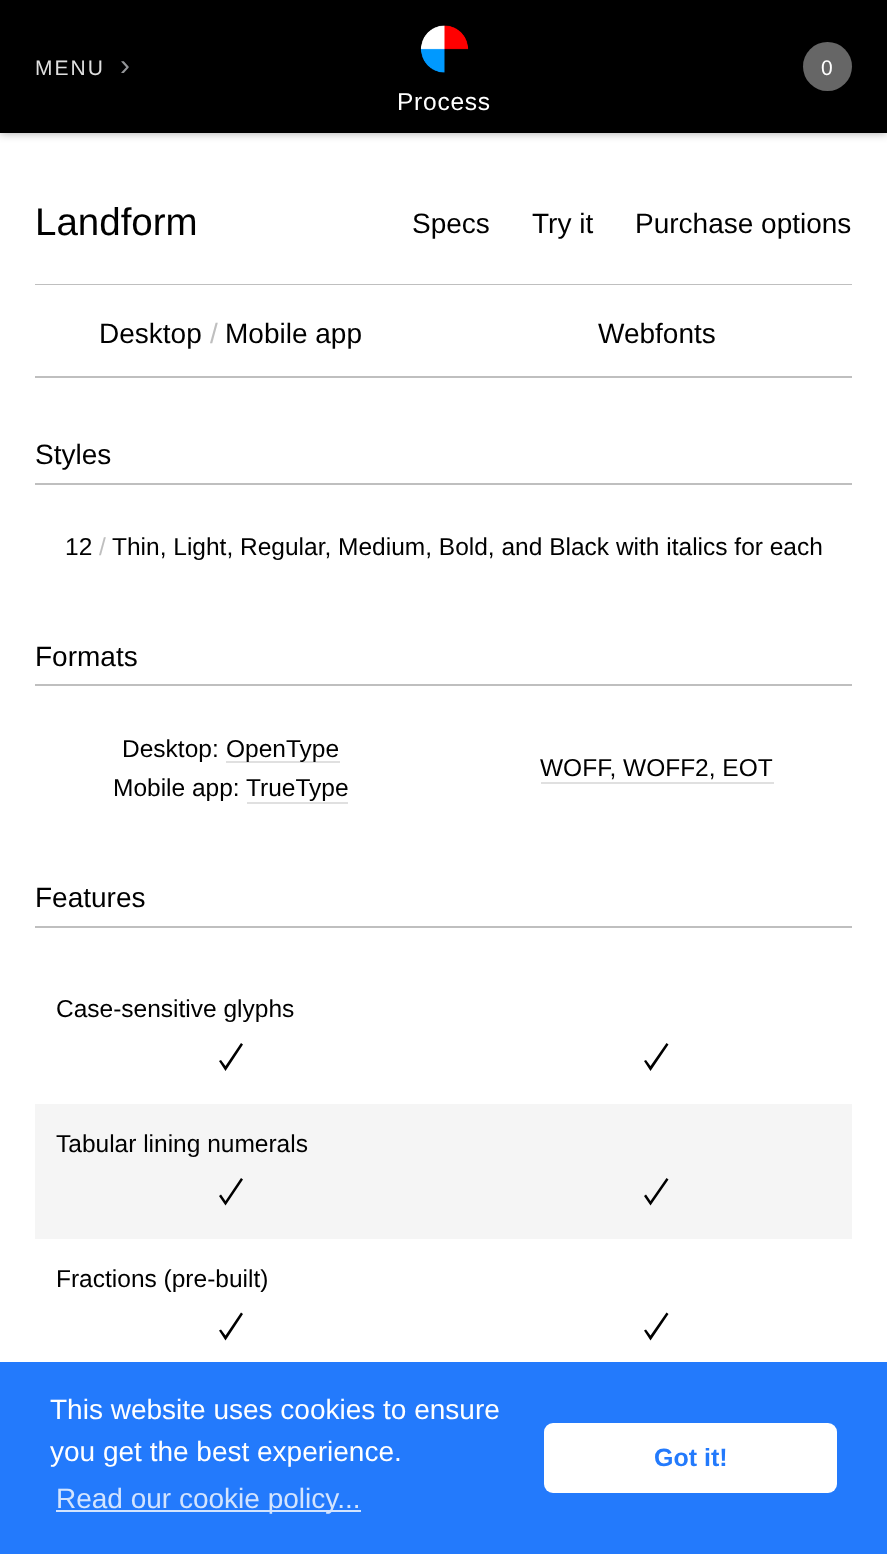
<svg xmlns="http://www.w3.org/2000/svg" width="887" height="1554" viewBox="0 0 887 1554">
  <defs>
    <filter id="blur1" x="-50%" y="-200%" width="200%" height="500%"><feGaussianBlur stdDeviation="5"/></filter>
  </defs>
  <rect width="100%" height="100%" fill="#ffffff"/>
  <rect x="0" y="0" width="887" height="133" fill="#000000" fill-opacity="0.35" filter="url(#blur1)"/>
  <rect x="0" y="0" width="887" height="133" fill="#000000"/>
  <text x="35" y="75" font-family="Liberation Sans" font-size="21" letter-spacing="2" fill="#dfdfdf">MENU</text>
  <text x="120" y="75" font-family="Liberation Sans" font-size="30" letter-spacing="2" fill="#939598">›</text>
  <circle cx="827.5" cy="66.5" r="24.5" fill="#666666"/>
  <text x="821" y="75" font-family="Liberation Sans" font-size="21" fill="#ffffff">0</text>
  <image x="420" y="25" width="49" height="48" href="img1.png"/>
  <text x="397" y="110" font-family="Liberation Sans" font-size="24.5" letter-spacing="0.75" fill="#ffffff">Process</text>
  <rect x="35" y="284" width="817" height="1" fill="#bfbfbf"/>
  <text x="35" y="235" font-family="Liberation Sans" font-size="38.5" fill="#000000">Landform</text>
  <text x="412" y="233" font-family="Liberation Sans" font-size="28" fill="#000000">Specs</text>
  <text x="532" y="233" font-family="Liberation Sans" font-size="28" fill="#000000">Try it</text>
  <text x="635" y="233" font-family="Liberation Sans" font-size="28" fill="#000000">Purchase options</text>
  <rect x="35" y="376" width="817" height="2" fill="#bfbfbf"/>
  <text x="99" y="343" font-family="Liberation Sans" font-size="28" fill="#000000">Desktop</text>
  <text x="210" y="343" font-family="Liberation Sans" font-size="28" fill="#bfbfbf">/</text>
  <text x="225" y="343" font-family="Liberation Sans" font-size="28" fill="#000000">Mobile app</text>
  <text x="598" y="343" font-family="Liberation Sans" font-size="28" fill="#000000">Webfonts</text>
  <rect x="35" y="483" width="817" height="2" fill="#bfbfbf"/>
  <text x="35" y="464" font-family="Liberation Sans" font-size="28" fill="#000000">Styles</text>
  <text x="65" y="555" font-family="Liberation Sans" font-size="24.5" fill="#000000">12</text>
  <text x="99" y="555" font-family="Liberation Sans" font-size="24.5" fill="#bfbfbf">/</text>
  <text x="112" y="555" font-family="Liberation Sans" font-size="24.5" fill="#000000">Thin, Light, Regular, Medium, Bold, and Black with italics for each</text>
  <rect x="35" y="684" width="817" height="2" fill="#bfbfbf"/>
  <text x="35" y="666" font-family="Liberation Sans" font-size="28" fill="#000000">Formats</text>
  <text x="122" y="757" font-family="Liberation Sans" font-size="24.5" fill="#000000">Desktop:</text>
  <rect x="226" y="761" width="114" height="2" fill="#e0e0e0"/>
  <text x="226" y="757" font-family="Liberation Sans" font-size="24.5" fill="#000000">OpenType</text>
  <text x="113" y="796" font-family="Liberation Sans" font-size="24.5" fill="#000000">Mobile app:</text>
  <text x="246" y="796" font-family="Liberation Sans" font-size="24.5" fill="#000000">TrueType</text>
  <rect x="247" y="802" width="101" height="2" fill="#e0e0e0"/>
  <text x="540" y="776" font-family="Liberation Sans" font-size="24.5" fill="#000000">WOFF, WOFF2, EOT</text>
  <rect x="541" y="782" width="233" height="2" fill="#e0e0e0"/>
  <rect x="35" y="926" width="817" height="2" fill="#bfbfbf"/>
  <text x="35" y="907" font-family="Liberation Sans" font-size="28" fill="#000000">Features</text>
  <text x="56" y="1017" font-family="Liberation Sans" font-size="24.5" fill="#000000">Case-sensitive glyphs</text>
  <path d="M219 1061L225.5 1071L243 1044.5L241 1043L225.5 1066L221 1060Z" fill="#000000"/>
  <path d="M644 1061L650.5 1071L668.5 1044.5L666.5 1043L650.5 1066L646 1060Z" fill="#000000"/>
  <rect x="35" y="1104" width="817" height="135" fill="#f5f5f5"/>
  <text x="56" y="1152" font-family="Liberation Sans" font-size="24.5" fill="#000000">Tabular lining numerals</text>
  <path d="M219 1196L225.5 1205.5L243 1179.5L241 1178L225.5 1201L221 1194.5Z" fill="#000000"/>
  <path d="M644 1196L650.5 1205.5L668.5 1179.5L666.5 1178L650.5 1201L646 1194.5Z" fill="#000000"/>
  <text x="56" y="1287" font-family="Liberation Sans" font-size="24.5" fill="#000000">Fractions (pre-built)</text>
  <path d="M219 1330.5L225.5 1340.5L243 1314L241 1312.5L225.5 1335.5L221 1329.5Z" fill="#000000"/>
  <path d="M644 1330.5L650.5 1340.5L668.5 1314L666.5 1312.5L650.5 1335.5L646 1329.5Z" fill="#000000"/>
  <rect x="0" y="1362" width="887" height="192" fill="#237afc"/>
  <text x="50" y="1419" font-family="Liberation Sans" font-size="28" fill="#ffffff">This website uses cookies to ensure</text>
  <text x="50" y="1461" font-family="Liberation Sans" font-size="28" fill="#ffffff">you get the best experience.</text>
  <rect x="56" y="1510" width="305" height="2" fill="#d3e4fe"/>
  <text x="56" y="1508" font-family="Liberation Sans" font-size="28" fill="#d3e4fe">Read our cookie policy...</text>
  <rect x="544" y="1423" width="293" height="70" rx="9" fill="#ffffff"/>
  <text x="654" y="1466" font-family="Liberation Sans" font-size="25" font-weight="bold" fill="#237afc">Got it!</text>
</svg>
